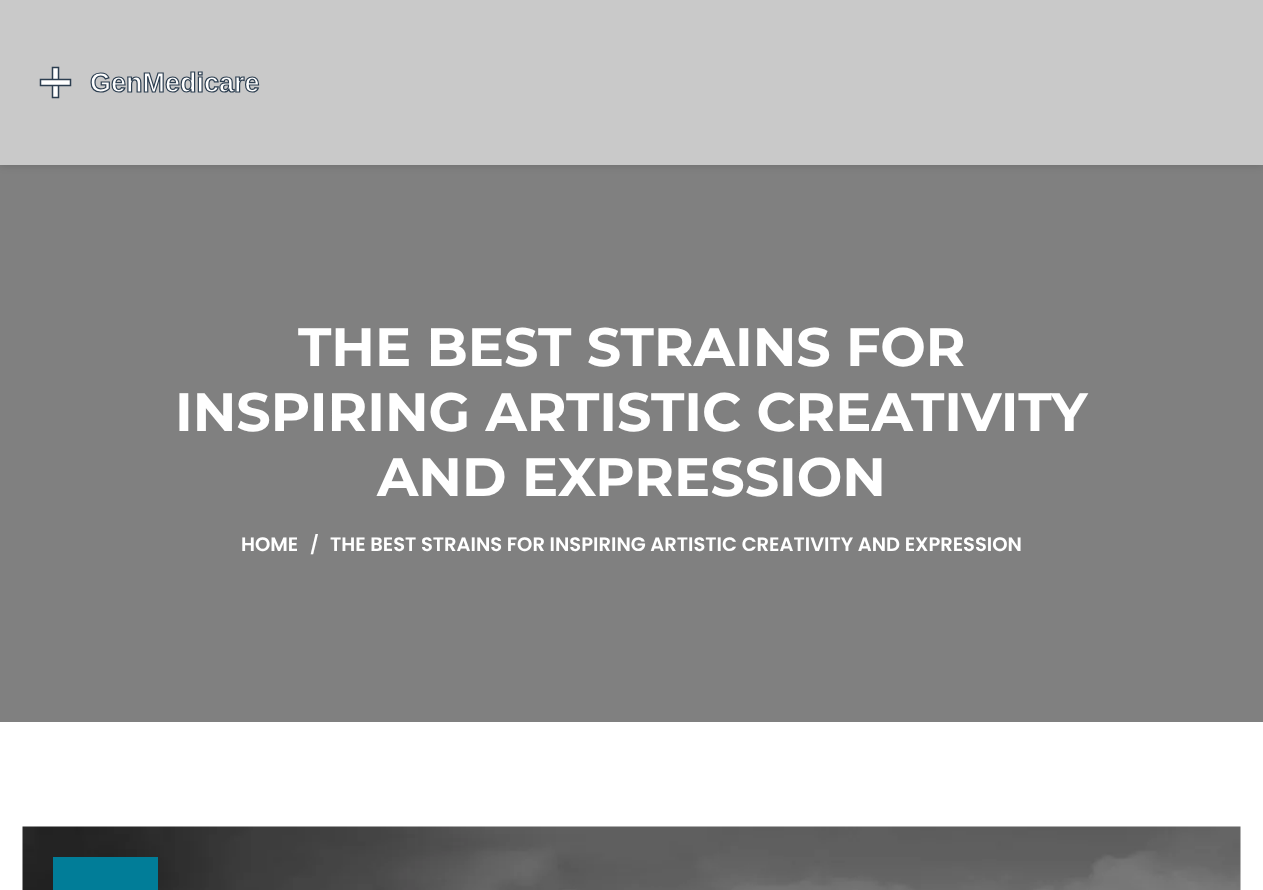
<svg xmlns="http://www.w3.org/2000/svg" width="1263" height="890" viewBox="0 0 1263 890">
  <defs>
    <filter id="blur1" x="-50%" y="-200%" width="200%" height="500%"><feGaussianBlur stdDeviation="4"/></filter>
  </defs>
  <rect width="100%" height="100%" fill="#ffffff"/>
  <rect x="0" y="165" width="1263" height="557" fill="#808080"/>
  <rect x="0" y="0" width="1263" height="165" fill="#000000" fill-opacity="0.17" filter="url(#blur1)"/>
  <rect x="0" y="0" width="1263" height="165" fill="#c9c9c9"/>
  <image x="39" y="66" width="221" height="33" href="img1.png"/>
  <text x="298" y="366" font-family="Montserrat" font-size="54" font-weight="bold" fill="#ffffff">THE BEST STRAINS FOR</text>
  <text x="175" y="431" font-family="Montserrat" font-size="54" font-weight="bold" fill="#ffffff">INSPIRING ARTISTIC CREATIVITY</text>
  <text x="377" y="496" font-family="Montserrat" font-size="54" font-weight="bold" fill="#ffffff">AND EXPRESSION</text>
  <text x="241" y="551" font-family="Poppins" font-size="19.5" font-weight="600" fill="#ffffff">HOME</text>
  <text x="310" y="551" font-family="Poppins" font-size="18" font-weight="600" fill="#ffffff">/</text>
  <text x="330" y="551" font-family="Poppins" font-size="19.5" font-weight="600" fill="#ffffff">THE BEST STRAINS FOR INSPIRING ARTISTIC CREATIVITY AND EXPRESSION</text>
  <image x="22" y="826" width="1219" height="64" href="img2.png"/>
  <rect x="53" y="857" width="105" height="33" fill="#017d98"/>
</svg>
